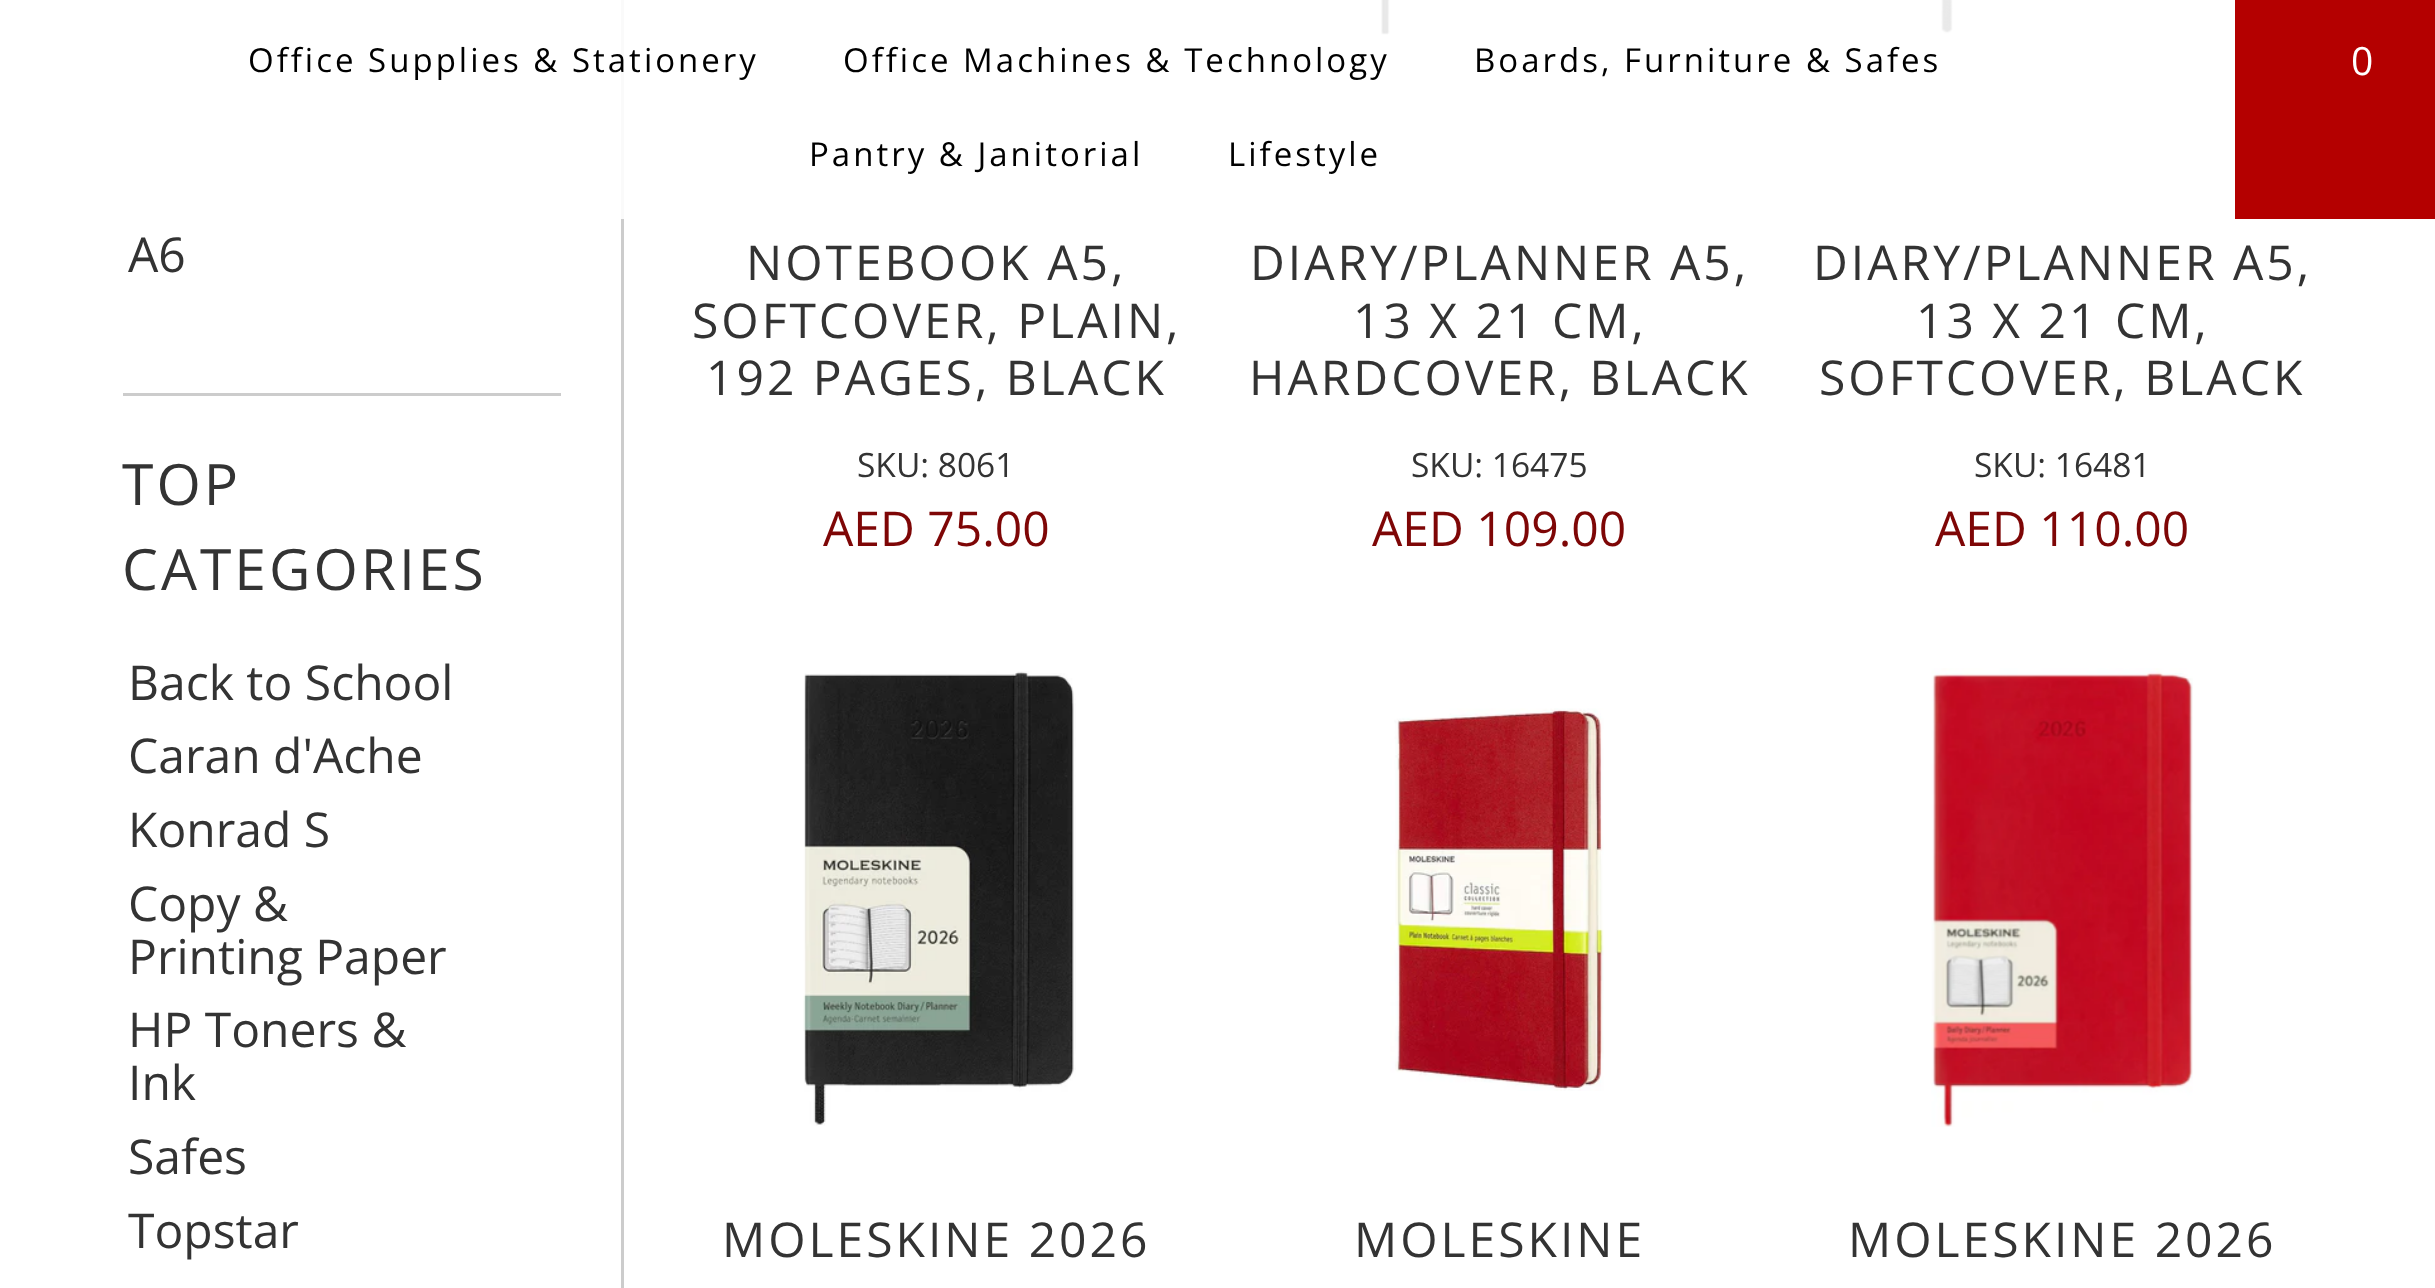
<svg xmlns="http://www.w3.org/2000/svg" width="2435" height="1288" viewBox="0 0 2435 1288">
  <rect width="100%" height="100%" fill="#ffffff"/>
  <rect x="621" y="0" width="3" height="1288" fill="#cccccc"/>
  <image x="1379" y="0" width="11" height="35" href="img1.png"/>
  <image x="1940" y="0" width="14" height="34" href="img2.png"/>
  <rect x="621" y="0" width="1333" height="219" fill="#ffffff" fill-opacity="0.9"/>
  <text x="248" y="72" font-family="Open Sans" font-size="33" letter-spacing="3" fill="#000000">Office Supplies &amp; Stationery</text>
  <text x="843" y="72" font-family="Open Sans" font-size="33" letter-spacing="3" fill="#000000">Office Machines &amp; Technology</text>
  <text x="1474" y="72" font-family="Open Sans" font-size="33" letter-spacing="3" fill="#000000">Boards, Furniture &amp; Safes</text>
  <text x="809" y="166" font-family="Open Sans" font-size="33" letter-spacing="3" fill="#000000">Pantry &amp; Janitorial</text>
  <text x="1228" y="166" font-family="Open Sans" font-size="33" letter-spacing="3" fill="#000000">Lifestyle</text>
  <rect x="2235" y="0" width="200" height="219" fill="#b40000"/>
  <text x="2351" y="75" font-family="Open Sans" font-size="39" letter-spacing="3" fill="#ffffff">0</text>
  <text x="128" y="272" font-family="Open Sans" font-size="48" fill="#333333">A6</text>
  <rect x="123" y="393" width="438" height="3" fill="#cccccc"/>
  <text x="122" y="505" font-family="Open Sans" font-size="57" letter-spacing="3" fill="#333333">TOP</text>
  <text x="122" y="590" font-family="Open Sans" font-size="57" letter-spacing="3" fill="#333333">CATEGORIES</text>
  <text x="128" y="700" font-family="Open Sans" font-size="48" fill="#333333">Back to School</text>
  <text x="128" y="773" font-family="Open Sans" font-size="48" fill="#333333">Caran d'Ache</text>
  <text x="128" y="847" font-family="Open Sans" font-size="48" fill="#333333">Konrad S</text>
  <text x="128" y="921" font-family="Open Sans" font-size="48" fill="#333333">Copy &amp;</text>
  <text x="128" y="974" font-family="Open Sans" font-size="48" fill="#333333">Printing Paper</text>
  <text x="128" y="1047" font-family="Open Sans" font-size="48" fill="#333333">HP Toners &amp;</text>
  <text x="128" y="1100" font-family="Open Sans" font-size="48" fill="#333333">Ink</text>
  <text x="128" y="1174" font-family="Open Sans" font-size="48" fill="#333333">Safes</text>
  <text x="128" y="1248" font-family="Open Sans" font-size="48" fill="#333333">Topstar</text>
  <text x="746" y="280" font-family="Open Sans" font-size="48" letter-spacing="3" fill="#333333">NOTEBOOK A5,</text>
  <text x="692" y="338" font-family="Open Sans" font-size="48" letter-spacing="3" fill="#333333">SOFTCOVER, PLAIN,</text>
  <text x="706" y="395" font-family="Open Sans" font-size="48" letter-spacing="3" fill="#333333">192 PAGES, BLACK</text>
  <text x="857" y="477" font-family="Open Sans" font-size="33.5" fill="#333333">SKU: 8061</text>
  <text x="823" y="546" font-family="Open Sans" font-size="48" fill="#7e0606">AED 75.00</text>
  <text x="1250" y="280" font-family="Open Sans" font-size="48" letter-spacing="3" fill="#333333">DIARY/PLANNER A5,</text>
  <text x="1353" y="338" font-family="Open Sans" font-size="48" letter-spacing="3" fill="#333333">13 X 21 CM,</text>
  <text x="1249" y="395" font-family="Open Sans" font-size="48" letter-spacing="3" fill="#333333">HARDCOVER, BLACK</text>
  <text x="1411" y="477" font-family="Open Sans" font-size="33.5" fill="#333333">SKU: 16475</text>
  <text x="1372" y="546" font-family="Open Sans" font-size="48" fill="#7e0606">AED 109.00</text>
  <text x="1813" y="280" font-family="Open Sans" font-size="48" letter-spacing="3" fill="#333333">DIARY/PLANNER A5,</text>
  <text x="1916" y="338" font-family="Open Sans" font-size="48" letter-spacing="3" fill="#333333">13 X 21 CM,</text>
  <text x="1819" y="395" font-family="Open Sans" font-size="48" letter-spacing="3" fill="#333333">SOFTCOVER, BLACK</text>
  <text x="1974" y="477" font-family="Open Sans" font-size="33.5" fill="#333333">SKU: 16481</text>
  <text x="1935" y="546" font-family="Open Sans" font-size="48" fill="#7e0606">AED 110.00</text>
  <image x="803" y="671" width="273" height="455" href="img3.png"/>
  <text x="722" y="1257" font-family="Open Sans" font-size="48" letter-spacing="3" fill="#333333">MOLESKINE 2026</text>
  <image x="1390" y="708" width="214" height="383" href="img4.png"/>
  <text x="1354" y="1257" font-family="Open Sans" font-size="48" letter-spacing="3" fill="#333333">MOLESKINE</text>
  <image x="1931" y="668" width="262" height="459" href="img5.png"/>
  <text x="1848" y="1257" font-family="Open Sans" font-size="48" letter-spacing="3" fill="#333333">MOLESKINE 2026</text>
</svg>
